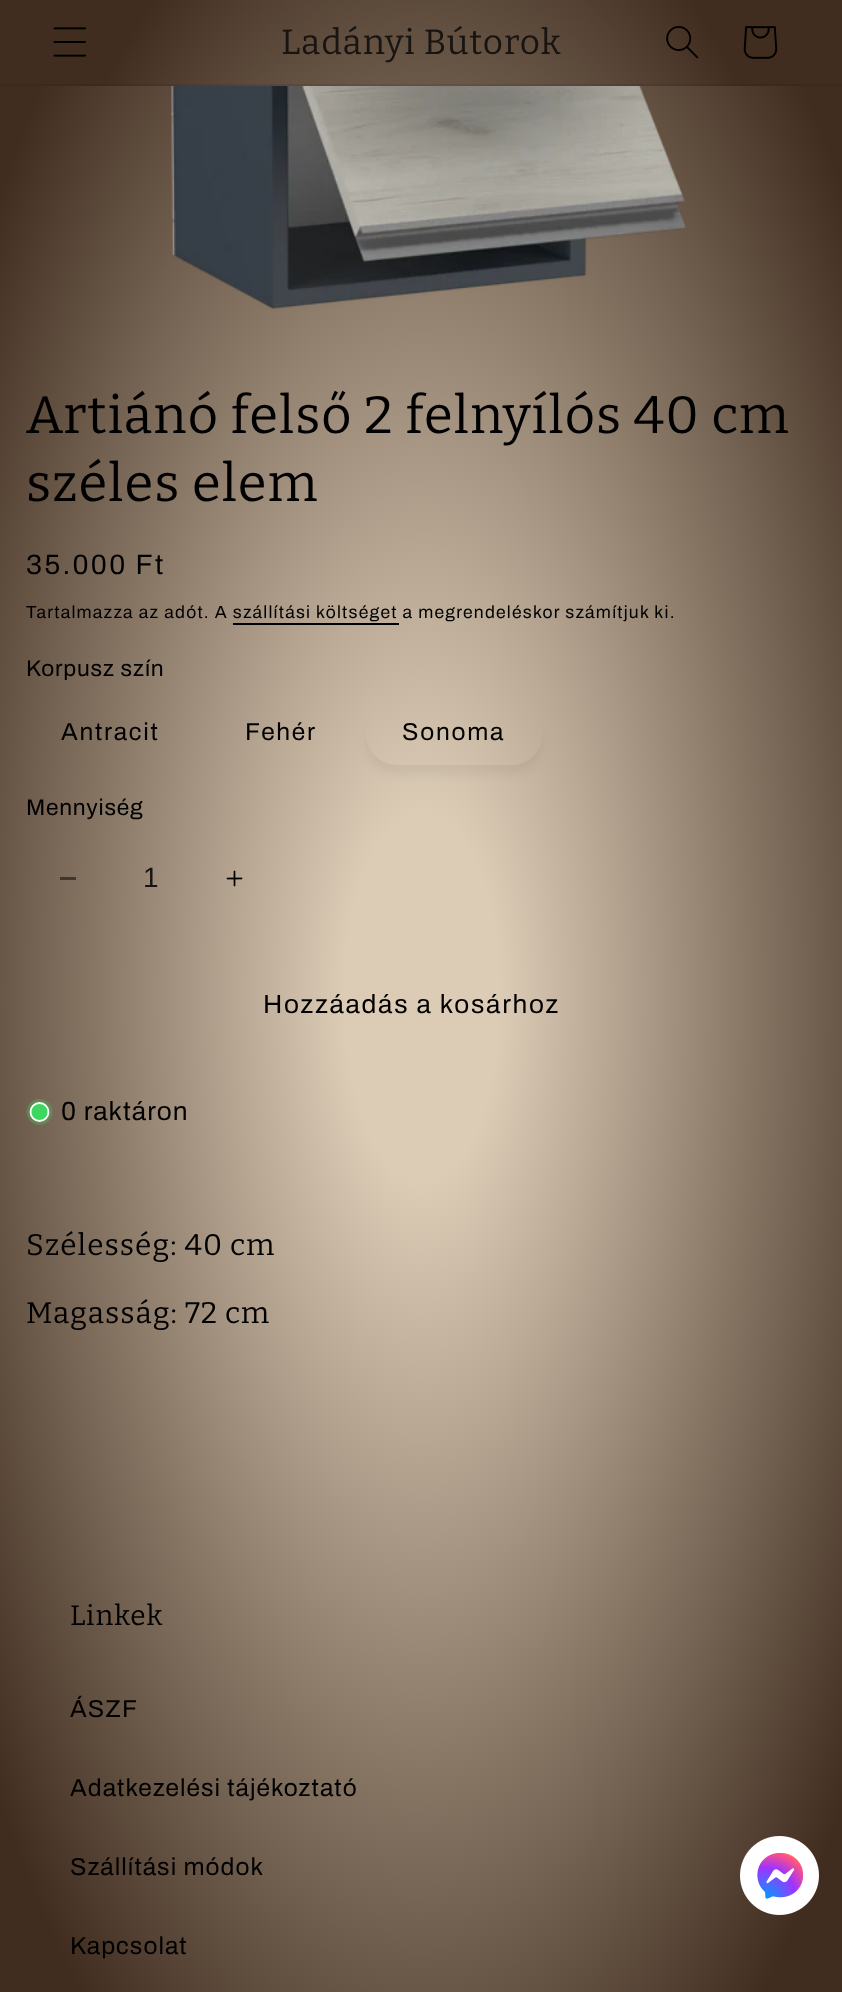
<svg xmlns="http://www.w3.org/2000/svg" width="842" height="1992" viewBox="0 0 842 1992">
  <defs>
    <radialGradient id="g1" gradientUnits="userSpaceOnUse" cx="0" cy="0" r="1" gradientTransform="matrix(596 0 0 1409 422 997)"><stop offset="0.13" stop-color="#dcccb6"/><stop offset="0.84" stop-color="#402d20"/></radialGradient>
    <radialGradient id="g2" gradientUnits="userSpaceOnUse" cx="0" cy="0" r="1" gradientTransform="matrix(596 0 0 1409 422 997)"><stop offset="0.13" stop-color="#dcccb6"/><stop offset="0.91" stop-color="#402d20"/></radialGradient>
    <radialGradient id="g3" gradientUnits="userSpaceOnUse" cx="0" cy="0" r="1" gradientTransform="matrix(596 0 0 1409 422 997)"><stop offset="0.13" stop-color="#6e665b"/><stop offset="0.91" stop-color="#201710"/></radialGradient>
    <clipPath id="clip1"><path d="M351 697H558V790H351ZM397.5 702H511.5C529 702 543 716 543 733.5C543 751 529 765 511.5 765H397.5C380 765 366 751 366 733.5C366 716 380 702 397.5 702Z" clip-rule="evenodd"/></clipPath>
    <filter id="blur1" x="-50%" y="-200%" width="200%" height="500%"><feGaussianBlur stdDeviation="4.5"/></filter>
  </defs>
  <rect width="100%" height="100%" fill="#ffffff"/>
  <rect x="0" y="0" width="842" height="86" fill="url(#g1)"/>
  <rect x="0" y="84" width="842" height="2" fill="#000000" fill-opacity="0.08"/>
  <image x="53" y="27" width="33" height="30" href="img1.png"/>
  <text x="281" y="54" font-family="Bitter" font-size="35" letter-spacing="1.05" fill="#171412">Ladányi Bútorok</text>
  <image x="666" y="26" width="33" height="33" href="img2.png"/>
  <image x="743" y="26" width="35" height="33" href="img3.png"/>
  <rect x="0" y="86" width="842" height="1349" fill="url(#g2)"/>
  <rect x="60" y="877" width="16" height="3" fill="url(#g3)"/>
  <image x="171" y="86" width="516" height="223" href="img4.png"/>
  <text x="26" y="433" font-family="Bitter" font-size="52.5" letter-spacing="1.05" fill="#000000">Artiánó felső 2 felnyílós 40 cm</text>
  <text x="26" y="501" font-family="Bitter" font-size="52.5" letter-spacing="1.05" fill="#000000">széles elem</text>
  <text x="26" y="574" font-family="Archivo" font-size="28" letter-spacing="2.25" fill="#000000">35.000 Ft</text>
  <text x="26" y="618" font-family="Archivo" font-size="17.5" letter-spacing="1.22" fill="#000000">Tartalmazza az adót. A szállítási költséget a megrendeléskor számítjuk ki.</text>
  <rect x="233" y="623" width="166" height="2" fill="#000000"/>
  <text x="26" y="676" font-family="Archivo" font-size="22.75" letter-spacing="0.75" fill="#000000">Korpusz szín</text>
  <text x="61" y="740" font-family="Archivo" font-size="24.5" letter-spacing="1.75" fill="#000000">Antracit</text>
  <text x="245" y="740" font-family="Archivo" font-size="24.5" letter-spacing="1.75" fill="#000000">Fehér</text>
  <g clip-path="url(#clip1)">
    <rect x="366" y="712" width="177" height="63" rx="31.5" fill="#000000" fill-opacity="0.05" filter="url(#blur1)"/>
  </g>
  <text x="402" y="740" font-family="Archivo" font-size="24.5" letter-spacing="1.75" fill="#000000">Sonoma</text>
  <text x="26" y="815" font-family="Archivo" font-size="22.75" letter-spacing="0.75" fill="#000000">Mennyiség</text>
  <text x="143" y="887" font-family="Liberation Sans" font-size="28" fill="#171412">1</text>
  <image x="226" y="870" width="17" height="17" href="img5.png"/>
  <text x="263" y="1013" font-family="Archivo" font-size="26.25" letter-spacing="1.75" fill="#000000">Hozzáadás a kosárhoz</text>
  <circle cx="39.5" cy="1112" r="13" fill="#3ed660" fill-opacity="0.3"/>
  <circle cx="39.5" cy="1112" r="9" fill="#3ed660" stroke="#ffffff" stroke-width="1.8"/>
  <text x="61" y="1120" font-family="Archivo" font-size="26.25" letter-spacing="1.05" fill="#000000">0 raktáron</text>
  <text x="26" y="1255" font-family="Bitter" font-size="29.75" letter-spacing="1.05" fill="#000000">Szélesség: 40 cm</text>
  <text x="26" y="1323" font-family="Bitter" font-size="29.75" letter-spacing="1.05" fill="#000000">Magasság: 72 cm</text>
  <rect x="0" y="1435" width="842" height="137" fill="url(#g2)"/>
  <rect x="0" y="1572" width="842" height="420" fill="url(#g2)"/>
  <text x="70" y="1625" font-family="Bitter" font-size="28" letter-spacing="1.05" fill="#000000">Linkek</text>
  <text x="70" y="1717" font-family="Archivo" font-size="24.5" letter-spacing="1.05" fill="#000000">ÁSZF</text>
  <text x="70" y="1796" font-family="Archivo" font-size="24.5" letter-spacing="1.05" fill="#000000">Adatkezelési tájékoztató</text>
  <text x="70" y="1875" font-family="Archivo" font-size="24.5" letter-spacing="1.05" fill="#000000">Szállítási módok</text>
  <text x="70" y="1954" font-family="Archivo" font-size="24.5" letter-spacing="1.05" fill="#000000">Kapcsolat</text>
  <image x="740" y="1836" width="79" height="79" href="img6.png"/>
</svg>
